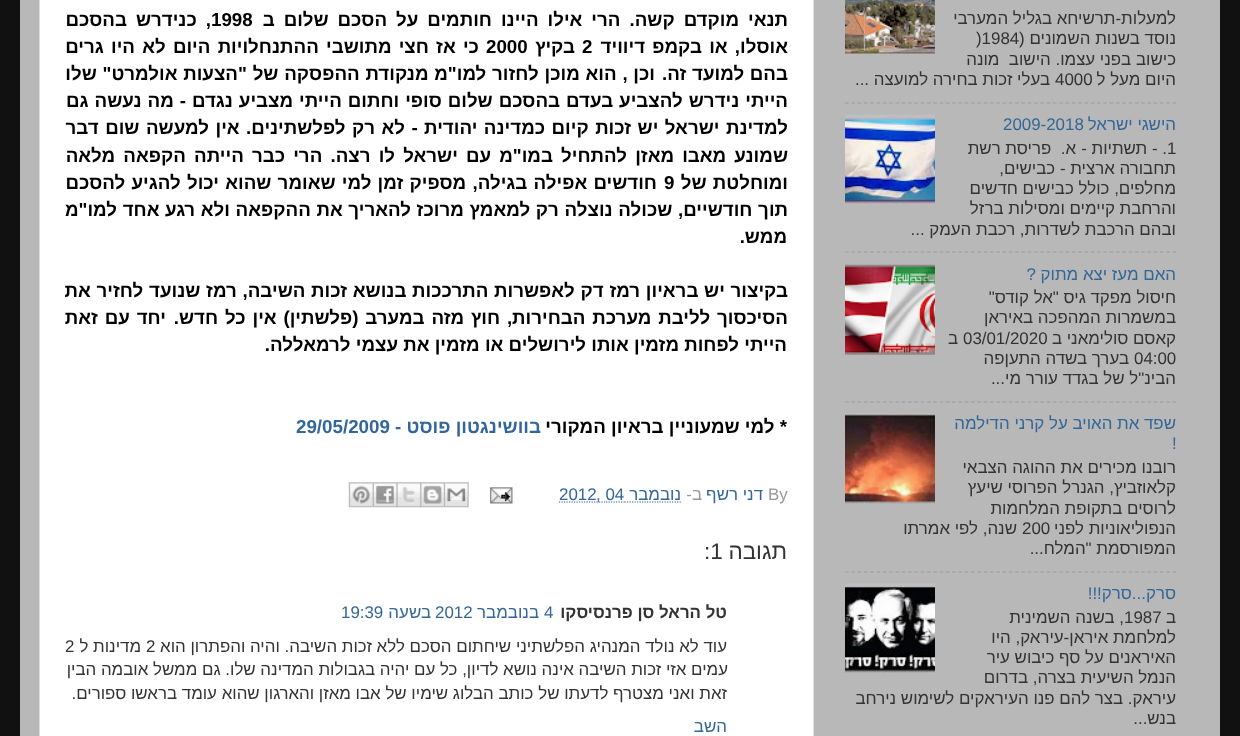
<svg xmlns="http://www.w3.org/2000/svg" width="1240" height="736" viewBox="0 0 1240 736">
  <rect width="100%" height="100%" fill="#111111"/>
  <rect x="20" y="0" width="1200" height="736" fill="#b8b8b8"/>
  <image x="845" y="0" width="90" height="55" href="img1.png"/>
  <text x="1176" y="24" font-family="Liberation Sans" font-size="16.9" direction="rtl" fill="#333333">למעלות-תרשיחא בגליל המערבי</text>
  <text x="1176" y="44" font-family="Liberation Sans" font-size="16.9" direction="rtl" fill="#333333">נוסד בשנות השמונים (</text>
  <text x="976" y="44" font-family="Liberation Sans" font-size="16.9" fill="#333333">)1984</text>
  <text x="1176" y="65" font-family="Liberation Sans" font-size="16.9" direction="rtl" fill="#333333" xml:space="preserve">כישוב בפני עצמו. הישוב  מונה</text>
  <text x="1176" y="85" font-family="Liberation Sans" font-size="16.9" direction="rtl" fill="#333333">היום מעל ל</text>
  <text x="1055" y="85" font-family="Liberation Sans" font-size="16.9" fill="#333333">4000</text>
  <text x="1050" y="85" font-family="Liberation Sans" font-size="16.9" direction="rtl" fill="#333333">בעלי זכות בחירה למועצה ...</text>
  <path d="M845 103H1176" fill="none" stroke="#9c9c9c" stroke-width="1.2" stroke-dasharray="3.75 2.55"/>
  <text x="1176" y="130" font-family="Liberation Sans" font-size="16.9" direction="rtl" fill="#336699">הישגי ישראל</text>
  <text x="1003" y="130" font-family="Liberation Sans" font-size="16.9" fill="#336699">2009-2018</text>
  <image x="845" y="114" width="90" height="91" href="img2.png"/>
  <text x="1167" y="154" font-family="Liberation Sans" font-size="16.9" fill="#333333">1</text>
  <text x="1167" y="154" font-family="Liberation Sans" font-size="16.9" direction="rtl" fill="#333333">. - תשתיות -</text>
  <text x="1076" y="154" font-family="Liberation Sans" font-size="16.9" direction="rtl" fill="#333333" xml:space="preserve">א.  פריסת רשת</text>
  <text x="1176" y="174" font-family="Liberation Sans" font-size="16.9" direction="rtl" fill="#333333">תחבורה ארצית - כבישים,</text>
  <text x="1176" y="194" font-family="Liberation Sans" font-size="16.9" direction="rtl" fill="#333333">מחלפים, כולל כבישים חדשים</text>
  <text x="1176" y="214" font-family="Liberation Sans" font-size="16.9" direction="rtl" fill="#333333">והרחבת</text>
  <text x="1115" y="214" font-family="Liberation Sans" font-size="16.9" direction="rtl" fill="#333333">קיימים ומסילות ברזל</text>
  <text x="1176" y="235" font-family="Liberation Sans" font-size="16.9" direction="rtl" fill="#333333">ובהם הרכבת לשדרות, רכבת העמק ...</text>
  <path d="M845 252H1176" fill="none" stroke="#9c9c9c" stroke-width="1.2" stroke-dasharray="3.75 2.55"/>
  <text x="1176" y="280" font-family="Liberation Sans" font-size="16.9" direction="rtl" fill="#336699">האם מעז יצא מתוק ?</text>
  <image x="845" y="264" width="90" height="91" href="img3.png"/>
  <text x="1176" y="303" font-family="Liberation Sans" font-size="16.9" direction="rtl" fill="#333333">חיסול מפקד גיס "אל קודס"</text>
  <text x="1176" y="323" font-family="Liberation Sans" font-size="16.9" direction="rtl" fill="#333333">במשמרות המהפכה באיראן</text>
  <text x="1176" y="344" font-family="Liberation Sans" font-size="16.9" direction="rtl" fill="#333333">קאסם סולימאני ב</text>
  <text x="963" y="344" font-family="Liberation Sans" font-size="16.9" fill="#333333">03/01/2020</text>
  <text x="958" y="344" font-family="Liberation Sans" font-size="16.9" direction="rtl" fill="#333333">ב</text>
  <text x="1134" y="364" font-family="Liberation Sans" font-size="16.9" fill="#333333">04:00</text>
  <text x="1129" y="364" font-family="Liberation Sans" font-size="16.9" direction="rtl" fill="#333333">בערך בשדה התעןפה</text>
  <text x="1176" y="384" font-family="Liberation Sans" font-size="16.9" direction="rtl" fill="#333333">הבינ"ל של בגדד עורר מי...</text>
  <path d="M845 402H1176" fill="none" stroke="#9c9c9c" stroke-width="1.2" stroke-dasharray="3.75 2.55"/>
  <text x="1176" y="429" font-family="Liberation Sans" font-size="16.9" direction="rtl" fill="#336699">שפד את האויב על קרני הדילמה</text>
  <text x="1172" y="449" font-family="Liberation Sans" font-size="16.9" fill="#336699">!</text>
  <image x="845" y="413" width="90" height="91" href="img4.png"/>
  <text x="1176" y="473" font-family="Liberation Sans" font-size="16.9" direction="rtl" fill="#333333">רובנו מכירים את ההוגה הצבאי</text>
  <text x="1176" y="493" font-family="Liberation Sans" font-size="16.9" direction="rtl" fill="#333333">קלאוזביץ, הגנרל הפרוסי שיעץ</text>
  <text x="1176" y="514" font-family="Liberation Sans" font-size="16.9" direction="rtl" fill="#333333">לרוסים בתקופת המלחמות</text>
  <text x="1176" y="534" font-family="Liberation Sans" font-size="16.9" direction="rtl" fill="#333333">הנפוליאוניות לפני</text>
  <text x="1022" y="534" font-family="Liberation Sans" font-size="16.9" fill="#333333">200</text>
  <text x="1017" y="534" font-family="Liberation Sans" font-size="16.9" direction="rtl" fill="#333333">שנה, לפי אמרתו</text>
  <text x="1176" y="554" font-family="Liberation Sans" font-size="16.9" direction="rtl" fill="#333333">המפורסמת "המלח...</text>
  <path d="M845 572H1176" fill="none" stroke="#9c9c9c" stroke-width="1.2" stroke-dasharray="3.75 2.55"/>
  <text x="1176" y="599" font-family="Liberation Sans" font-size="16.9" direction="rtl" fill="#336699">סרק...סרק!!!</text>
  <image x="845" y="583" width="90" height="91" href="img5.png"/>
  <text x="1176" y="623" font-family="Liberation Sans" font-size="16.9" direction="rtl" fill="#333333">ב</text>
  <text x="1124" y="623" font-family="Liberation Sans" font-size="16.9" fill="#333333">1987</text>
  <text x="1124" y="623" font-family="Liberation Sans" font-size="16.9" direction="rtl" fill="#333333">, בשנה השמינית</text>
  <text x="1176" y="643" font-family="Liberation Sans" font-size="16.9" direction="rtl" fill="#333333">למלחמת איראן-עיראק, היו</text>
  <text x="1176" y="663" font-family="Liberation Sans" font-size="16.9" direction="rtl" fill="#333333">האיראנים על סף כיבוש עיר</text>
  <text x="1176" y="683" font-family="Liberation Sans" font-size="16.9" direction="rtl" fill="#333333">הנמל השיעית בצרה, בדרום</text>
  <text x="1176" y="704" font-family="Liberation Sans" font-size="16.9" direction="rtl" fill="#333333">עיראק. בצר להם פנו העיראקים לשימוש נירחב</text>
  <text x="1176" y="724" font-family="Liberation Sans" font-size="16.9" direction="rtl" fill="#333333">בנש...</text>
  <rect x="39.5" y="-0.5" width="774" height="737" fill="#ffffff" stroke="#dddddd"/>
  <text x="788" y="26" word-spacing="3.75" font-family="Liberation Sans" font-size="18.75" font-weight="bold" direction="rtl" fill="#000000">תנאי מוקדם קשה. הרי אילו היינו חותמים על הסכם שלום ב</text>
  <text x="211" y="26" font-family="Liberation Sans" font-size="18.75" font-weight="bold" fill="#000000">1998</text>
  <text x="211" y="26" word-spacing="3.75" font-family="Liberation Sans" font-size="18.75" font-weight="bold" direction="rtl" fill="#000000">, כנידרש בהסכם</text>
  <text x="788" y="53" word-spacing="2" font-family="Liberation Sans" font-size="18.75" font-weight="bold" direction="rtl" fill="#000000">אוסלו, או בקמפ דיוויד</text>
  <text x="582" y="53" font-family="Liberation Sans" font-size="18.75" font-weight="bold" fill="#000000">2</text>
  <text x="575" y="53" font-family="Liberation Sans" font-size="18.75" font-weight="bold" direction="rtl" fill="#000000">בקיץ</text>
  <text x="486" y="53" font-family="Liberation Sans" font-size="18.75" font-weight="bold" fill="#000000">2000</text>
  <text x="479" y="53" word-spacing="2" font-family="Liberation Sans" font-size="18.75" font-weight="bold" direction="rtl" fill="#000000">כי אז חצי מתושבי ההתנחלויות היום לא היו גרים</text>
  <text x="788" y="80" word-spacing="0.5" font-family="Liberation Sans" font-size="18.75" font-weight="bold" direction="rtl" fill="#000000">בהם למועד זה.</text>
  <text x="655" y="80" word-spacing="0.5" font-family="Liberation Sans" font-size="18.75" font-weight="bold" direction="rtl" fill="#000000">וכן , הוא מוכן לחזור למו"מ מנקודת ההפסקה של "הצעות אולמרט" שלו</text>
  <text x="788" y="107" word-spacing="0.75" font-family="Liberation Sans" font-size="18.75" font-weight="bold" direction="rtl" fill="#000000">הייתי נידרש להצביע בעדם בהסכם שלום סופי וחתום הייתי מצביע נגדם - מה נעשה גם</text>
  <text x="788" y="134" word-spacing="1.25" font-family="Liberation Sans" font-size="18.75" font-weight="bold" direction="rtl" fill="#000000">למדינת ישראל יש זכות קיום כמדינה יהודית - לא רק לפלשתינים. אין למעשה שום דבר</text>
  <text x="788" y="162" word-spacing="2.9" font-family="Liberation Sans" font-size="18.75" font-weight="bold" direction="rtl" fill="#000000">שמונע מאבו מאזן להתחיל במו"מ עם ישראל לו רצה. הרי כבר הייתה הקפאה מלאה</text>
  <text x="788" y="189" word-spacing="1" font-family="Liberation Sans" font-size="18.75" font-weight="bold" direction="rtl" fill="#000000">ומוחלטת של</text>
  <text x="664" y="189" font-family="Liberation Sans" font-size="18.75" font-weight="bold" fill="#000000">9</text>
  <text x="657" y="189" word-spacing="1" font-family="Liberation Sans" font-size="18.75" font-weight="bold" direction="rtl" fill="#000000">חודשים אפילה בגילה, מספיק זמן למי שאומר שהוא יכול להגיע להסכם</text>
  <text x="788" y="216" word-spacing="0.4" font-family="Liberation Sans" font-size="18.75" font-weight="bold" direction="rtl" fill="#000000">תוך חודשיים, שכולה נוצלה רק למאמץ מרוכז להאריך את ההקפאה ולא רגע אחד למו"מ</text>
  <text x="787" y="243" font-family="Liberation Sans" font-size="18.75" font-weight="bold" direction="rtl" fill="#000000">ממש.</text>
  <text x="788" y="297" word-spacing="0.5" font-family="Liberation Sans" font-size="18.75" font-weight="bold" direction="rtl" fill="#000000">בקיצור יש בראיון רמז דק לאפשרות התרככות בנושא זכות השיבה, רמז שנועד לחזיר את</text>
  <text x="788" y="324" word-spacing="1.6" font-family="Liberation Sans" font-size="18.75" font-weight="bold" direction="rtl" fill="#000000">הסיכסוך לליבת מערכת הבחירות, חוץ מזה במערב (פלשתין) אין כל חדש.</text>
  <text x="166" y="324" word-spacing="1.6" font-family="Liberation Sans" font-size="18.75" font-weight="bold" direction="rtl" fill="#000000">יחד עם זאת</text>
  <text x="787" y="351" font-family="Liberation Sans" font-size="18.75" font-weight="bold" direction="rtl" fill="#000000">הייתי לפחות מזמין אותו לירושלים או מזמין את עצמי לרמאללה.</text>
  <text x="787" y="433" font-family="Liberation Sans" font-size="18.75" font-weight="bold" direction="rtl" fill="#000000">* למי שמעוניין בראיון המקורי</text>
  <text x="541" y="433" font-family="Liberation Sans" font-size="18.75" font-weight="bold" direction="rtl" fill="#336699">בוושינגטון פוסט -</text>
  <text x="296" y="433" font-family="Liberation Sans" font-size="18.75" font-weight="bold" fill="#336699">29/05/2009</text>
  <text x="768" y="500" font-family="Liberation Sans" font-size="16.9" fill="#999999">By</text>
  <text x="763" y="500" font-family="Liberation Sans" font-size="16.9" direction="rtl" fill="#336699">דני רשף</text>
  <text x="702" y="500" font-family="Liberation Sans" font-size="16.9" direction="rtl" fill="#999999">ב-</text>
  <text x="681" y="500" font-family="Liberation Sans" font-size="16.9" direction="rtl" fill="#336699">נובמבר</text>
  <path d="M596.5 502H606" fill="none" stroke="#336699" stroke-width="1.2" stroke-dasharray="1.25 1.25"/>
  <text x="596" y="500" font-family="Liberation Sans" font-size="16.9" fill="#336699">, 04</text>
  <path d="M606 502H624.5" fill="none" stroke="#336699" stroke-width="1.2" stroke-dasharray="1.25 1.25"/>
  <path d="M624.5 502H681" fill="none" stroke="#336699" stroke-width="1.2" stroke-dasharray="1.25 1.25"/>
  <text x="559" y="500" font-family="Liberation Sans" font-size="16.9" fill="#336699">2012</text>
  <path d="M559 502H596.5" fill="none" stroke="#336699" stroke-width="1.2" stroke-dasharray="1.25 1.25"/>
  <image x="490" y="487" width="23" height="17" href="img6.png"/>
  <image x="444" y="482" width="25" height="26" href="img7.png"/>
  <image x="420" y="482" width="25" height="26" href="img8.png"/>
  <image x="396" y="482" width="26" height="26" href="img9.png"/>
  <image x="372" y="482" width="26" height="26" href="img10.png"/>
  <image x="348" y="482" width="26" height="26" href="img11.png"/>
  <text x="787" y="559" font-family="Liberation Sans" font-size="22.5" direction="rtl" fill="#333333">תגובה</text>
  <text x="704" y="559" font-family="Liberation Sans" font-size="22.5" fill="#333333">:1</text>
  <text x="727" y="618" font-family="Liberation Sans" font-size="16.9" font-weight="bold" direction="rtl" fill="#333333">טל הראל סן פרנסיסקו</text>
  <text x="544" y="618" font-family="Liberation Sans" font-size="16.9" fill="#336699">4</text>
  <text x="539" y="618" font-family="Liberation Sans" font-size="16.9" direction="rtl" fill="#336699">בנובמבר</text>
  <text x="435" y="618" font-family="Liberation Sans" font-size="16.9" fill="#336699">2012</text>
  <text x="431" y="618" font-family="Liberation Sans" font-size="16.9" direction="rtl" fill="#336699">בשעה</text>
  <text x="341" y="618" font-family="Liberation Sans" font-size="16.9" fill="#336699">19:39</text>
  <text x="727" y="652" font-family="Liberation Sans" font-size="16.9" direction="rtl" fill="#333333">עוד לא נולד המנהיג הפלשתיני שיחתום הסכם ללא זכות השיבה. והיה והפתרון הוא</text>
  <text x="146" y="652" font-family="Liberation Sans" font-size="16.9" fill="#333333">2</text>
  <text x="141" y="652" font-family="Liberation Sans" font-size="16.9" direction="rtl" fill="#333333">מדינות ל</text>
  <text x="65" y="652" font-family="Liberation Sans" font-size="16.9" fill="#333333">2</text>
  <text x="728" y="675" font-family="Liberation Sans" font-size="16.9" direction="rtl" fill="#333333">עמים אזי זכות השיבה אינה נושא לדיון, כל עם יהיה בגבולות המדינה שלו. גם ממשל אובמה הבין</text>
  <text x="727" y="699" font-family="Liberation Sans" font-size="16.9" direction="rtl" fill="#333333">זאת ואני מצטרף לדעתו של כותב הבלוג שימיו של אבו מאזן והארגון שהוא עומד בראשו ספורים.</text>
  <text x="727" y="732" font-family="Liberation Sans" font-size="16.9" direction="rtl" fill="#336699">השב</text>
</svg>
